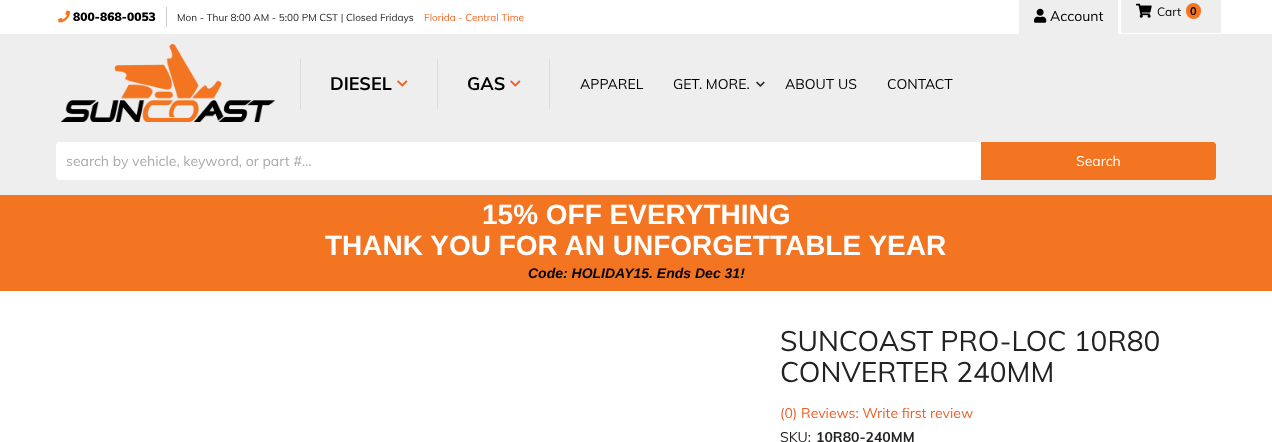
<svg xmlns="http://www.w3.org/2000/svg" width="1272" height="442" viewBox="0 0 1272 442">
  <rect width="100%" height="100%" fill="#ffffff"/>
  <rect x="0" y="34" width="1272" height="161" fill="#eeeeee"/>
  <rect x="1121" y="0" width="100" height="33" fill="#eeeeee"/>
  <image x="1136" y="3" width="16" height="15" href="img1.png"/>
  <text x="1157" y="16" font-family="Muli" font-size="12" fill="#000000">Cart</text>
  <rect x="1186" y="3" width="15" height="16" rx="7.5" fill="#f37421"/>
  <text x="1190" y="15" font-family="Muli" font-size="11" font-weight="bold" fill="#000000">0</text>
  <image x="61" y="44" width="214" height="78" href="img2.png"/>
  <rect x="300" y="59" width="1" height="50" fill="#dcdcdc"/>
  <text x="330" y="90" font-family="Muli" font-size="18" font-weight="bold" fill="#000000">DIESEL</text>
  <image x="397" y="80" width="11" height="7" href="img3.png"/>
  <rect x="437" y="59" width="1" height="50" fill="#dcdcdc"/>
  <text x="467" y="90" font-family="Muli" font-size="18" font-weight="bold" fill="#000000">GAS</text>
  <image x="510" y="80" width="11" height="7" href="img3.png"/>
  <rect x="549" y="59" width="1" height="50" fill="#dcdcdc"/>
  <text x="580" y="89" font-family="Muli" font-size="14" fill="#000000">APPAREL</text>
  <text x="673" y="89" font-family="Muli" font-size="14" fill="#000000">GET. MORE.</text>
  <image x="756" y="81" width="9" height="6" href="img4.png"/>
  <text x="785" y="89" font-family="Muli" font-size="14" fill="#000000">ABOUT US</text>
  <text x="887" y="89" font-family="Muli" font-size="14" fill="#000000">CONTACT</text>
  <path d="M59 142H981V180H59C57.5 180 56 178.5 56 177V145C56 143.5 57.5 142 59 142Z" fill="#ffffff"/>
  <text x="66" y="166" font-family="Muli" font-size="14" fill="#aaaaaa">search by vehicle, keyword, or part #...</text>
  <path d="M981 142H1213C1214.5 142 1216 143.5 1216 145V177C1216 178.5 1214.5 180 1213 180H981Z" fill="#f37421"/>
  <text x="1076" y="166" font-family="Muli" font-size="14" fill="#ffffff">Search</text>
  <rect x="166" y="7" width="1" height="20" fill="#cccccc"/>
  <image x="58" y="10" width="12" height="13" href="img5.png"/>
  <text x="73" y="21" font-family="Muli" font-size="12" font-weight="900" fill="#000000">800-868-0053</text>
  <text x="177" y="21" font-family="Muli" font-size="10" fill="#222222">Mon - Thur 8:00 AM - 5:00 PM CST | Closed Fridays</text>
  <text x="424" y="21" font-family="Muli" font-size="10" fill="#f26522">Florida - Central Time</text>
  <rect x="1019" y="0" width="99" height="34" fill="#eeeeee"/>
  <image x="1034" y="8" width="13" height="15" href="img6.png"/>
  <text x="1050" y="21" font-family="Muli" font-size="14" fill="#000000">Account</text>
  <rect x="0" y="195" width="1272" height="96" fill="#f37421"/>
  <text x="482" y="224" font-family="Liberation Sans" font-size="28" font-weight="bold" fill="#ffffff">15% OFF EVERYTHING</text>
  <text x="325" y="255" font-family="Liberation Sans" font-size="28" font-weight="bold" fill="#ffffff">THANK YOU FOR AN UNFORGETTABLE YEAR</text>
  <text x="528" y="278" font-family="Liberation Sans" font-size="14" font-weight="bold" font-style="italic" fill="#000000">Code: HOLIDAY15. Ends Dec 31!</text>
  <text x="780" y="351" font-family="Muli" font-size="28" fill="#222222">SUNCOAST PRO-LOC 10R80</text>
  <text x="780" y="382" font-family="Muli" font-size="28" fill="#222222">CONVERTER 240MM</text>
  <text x="780" y="418" font-family="Muli" font-size="14" fill="#eb5f26">(0) Reviews: Write first review</text>
  <text x="780" y="442" font-family="Muli" font-size="14" fill="#222222">SKU:</text>
  <text x="816" y="442" font-family="Muli" font-size="14" font-weight="bold" fill="#222222">10R80-240MM</text>
</svg>
